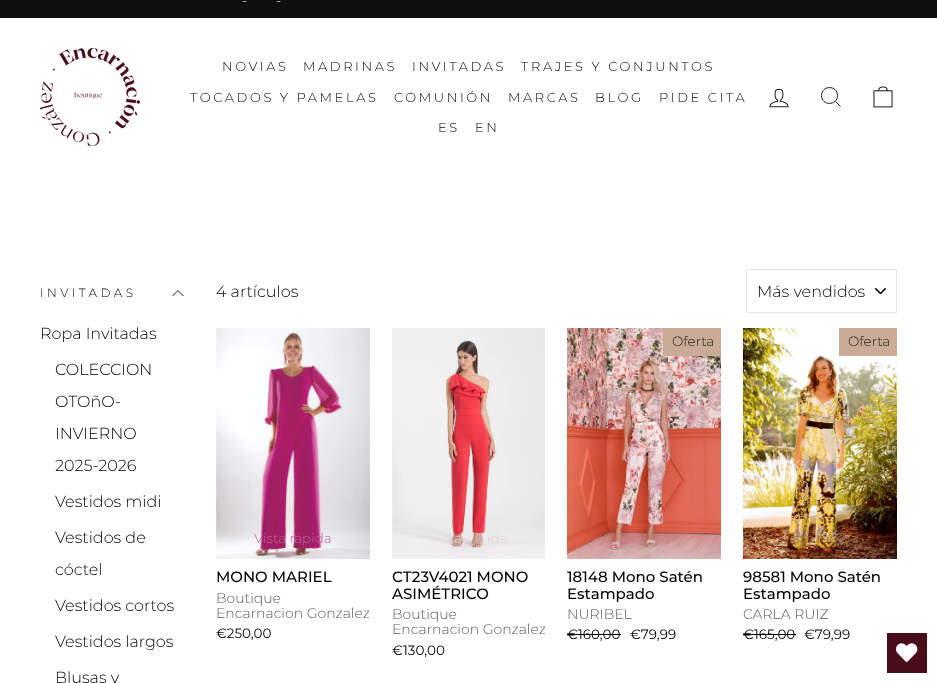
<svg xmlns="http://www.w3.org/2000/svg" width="937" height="683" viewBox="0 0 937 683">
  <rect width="100%" height="100%" fill="#ffffff"/>
  <rect x="0" y="0" width="937" height="18" fill="#0f0f0f"/>
  <text x="242" y="5" font-family="Montserrat" font-size="13.5" font-weight="300" fill="#ffffff">-</text>
  <text x="276" y="5" font-family="Montserrat" font-size="13.5" font-weight="300" fill="#ffffff">-</text>
  <image x="40" y="48" width="100" height="98" href="img1.png"/>
  <text x="222" y="71" font-family="Montserrat" font-size="13" font-weight="300" letter-spacing="2.6" fill="#000000">NOVIAS</text>
  <text x="303" y="71" font-family="Montserrat" font-size="13" font-weight="300" letter-spacing="2.6" fill="#000000">MADRINAS</text>
  <text x="412" y="71" font-family="Montserrat" font-size="13" font-weight="300" letter-spacing="2.6" fill="#000000">INVITADAS</text>
  <text x="521" y="71" font-family="Montserrat" font-size="13" font-weight="300" letter-spacing="2.6" fill="#000000">TRAJES Y CONJUNTOS</text>
  <text x="190" y="102" font-family="Montserrat" font-size="13" font-weight="300" letter-spacing="2.6" fill="#000000">TOCADOS Y PAMELAS</text>
  <text x="394" y="102" font-family="Montserrat" font-size="13" font-weight="300" letter-spacing="2.6" fill="#000000">COMUNIÓN</text>
  <text x="508" y="102" font-family="Montserrat" font-size="13" font-weight="300" letter-spacing="2.6" fill="#000000">MARCAS</text>
  <text x="595" y="102" font-family="Montserrat" font-size="13" font-weight="300" letter-spacing="2.6" fill="#000000">BLOG</text>
  <text x="659" y="102" font-family="Montserrat" font-size="13" font-weight="300" letter-spacing="2.6" fill="#000000">PIDE CITA</text>
  <text x="438" y="132" font-family="Montserrat" font-size="13" font-weight="300" letter-spacing="2.6" fill="#000000">ES</text>
  <text x="475" y="132" font-family="Montserrat" font-size="13" font-weight="300" letter-spacing="2.6" fill="#000000">EN</text>
  <image x="769" y="88" width="20" height="20" href="img2.png"/>
  <path d="M837.5 95.5C837.5 106 821.5 106 821.5 95.5C821.5 85 837.5 85 837.5 95.5ZM840.5 106.5L835.5 101.5" fill="none" stroke="#000000" stroke-width="0.9"/>
  <image x="873" y="86" width="20" height="22" href="img3.png"/>
  <text x="40" y="297" font-family="Montserrat" font-size="12" font-weight="300" letter-spacing="3.5" fill="#000000">INVITADAS</text>
  <path d="M172.5 296L178 290.5L183.5 296" fill="none" stroke="#000000" stroke-width="0.9"/>
  <text x="40" y="339" font-family="Montserrat" font-size="16" font-weight="300" fill="#000000">Ropa Invitadas</text>
  <text x="55" y="375" font-family="Montserrat" font-size="16" font-weight="300" fill="#000000">COLECCION</text>
  <text x="55" y="407" font-family="Montserrat" font-size="16" font-weight="300" fill="#000000">OTOñO-</text>
  <text x="55" y="439" font-family="Montserrat" font-size="16" font-weight="300" fill="#000000">INVIERNO</text>
  <text x="55" y="471" font-family="Montserrat" font-size="16" font-weight="300" fill="#000000">2025-2026</text>
  <text x="55" y="507" font-family="Montserrat" font-size="16" font-weight="300" fill="#000000">Vestidos midi</text>
  <text x="55" y="543" font-family="Montserrat" font-size="16" font-weight="300" fill="#000000">Vestidos de</text>
  <text x="55" y="575" font-family="Montserrat" font-size="16" font-weight="300" fill="#000000">cóctel</text>
  <text x="55" y="611" font-family="Montserrat" font-size="16" font-weight="300" fill="#000000">Vestidos cortos</text>
  <text x="55" y="647" font-family="Montserrat" font-size="16" font-weight="300" fill="#000000">Vestidos largos</text>
  <text x="55" y="683" font-family="Montserrat" font-size="16" font-weight="300" fill="#000000">Blusas y</text>
  <text x="216" y="297" font-family="Montserrat" font-size="16" font-weight="300" fill="#000000">4 artículos</text>
  <image x="875" y="288" width="11" height="6" href="img4.png"/>
  <rect x="746.5" y="269.5" width="150" height="43" fill="none" stroke="#e8e8e1"/>
  <text x="757" y="297" font-family="Montserrat" font-size="16" font-weight="300" fill="#000000">Más vendidos</text>
  <image x="216" y="328" width="154" height="231" href="img5.png"/>
  <text x="254" y="543" font-family="Montserrat" font-size="13.5" font-weight="300" fill="#bc6292">Vista rápida</text>
  <text x="216" y="582" font-family="Montserrat" font-size="15" font-weight="500" fill="#000000">MONO MARIEL</text>
  <text x="216" y="603" font-family="Montserrat" font-size="14" font-weight="300" fill="#595757">Boutique</text>
  <text x="216" y="618" font-family="Montserrat" font-size="14" font-weight="300" fill="#595757">Encarnacion Gonzalez</text>
  <text x="216" y="638" font-family="Montserrat" font-size="13.5" fill="#000000">€250,00</text>
  <image x="392" y="328" width="153" height="231" href="img6.png"/>
  <text x="454" y="543" font-family="Montserrat" font-size="13.5" font-weight="300" fill="#e0d3d1">a</text>
  <text x="487" y="543" font-family="Montserrat" font-size="13.5" font-weight="300" fill="#e0d3d1">ida</text>
  <text x="392" y="582" font-family="Montserrat" font-size="15" font-weight="500" fill="#000000">CT23V4021 MONO</text>
  <text x="392" y="599" font-family="Montserrat" font-size="15" font-weight="500" fill="#000000">ASIMÉTRICO</text>
  <text x="392" y="619" font-family="Montserrat" font-size="14" font-weight="300" fill="#595757">Boutique</text>
  <text x="392" y="634" font-family="Montserrat" font-size="14" font-weight="300" fill="#595757">Encarnacion Gonzalez</text>
  <text x="392" y="655" font-family="Montserrat" font-size="13.5" fill="#000000">€130,00</text>
  <image x="567" y="328" width="154" height="231" href="img7.png"/>
  <rect x="663" y="328" width="58" height="28" fill="#caab96"/>
  <text x="672" y="346" font-family="Montserrat" font-size="13.5" font-weight="300" fill="#1c1d1d">Oferta</text>
  <text x="567" y="582" font-family="Montserrat" font-size="15" font-weight="500" fill="#000000">18148 Mono Satén</text>
  <text x="567" y="599" font-family="Montserrat" font-size="15" font-weight="500" fill="#000000">Estampado</text>
  <text x="567" y="619" font-family="Montserrat" font-size="14" font-weight="300" fill="#595757">NURIBEL</text>
  <text x="567" y="639" font-family="Montserrat" font-size="13.5" fill="#000000">€160,00</text>
  <rect x="567" y="634" width="54" height="1" fill="#000000"/>
  <text x="630" y="639" font-family="Montserrat" font-size="13.5" fill="#000000">€79,99</text>
  <image x="743" y="328" width="154" height="231" href="img8.png"/>
  <rect x="839" y="328" width="58" height="28" fill="#caab96"/>
  <text x="848" y="346" font-family="Montserrat" font-size="13.5" font-weight="300" fill="#1c1d1d">Oferta</text>
  <text x="781" y="543" font-family="Montserrat" font-size="13.5" font-weight="300" fill="#9e6f3e">Vista rápida</text>
  <text x="743" y="582" font-family="Montserrat" font-size="15" font-weight="500" fill="#000000">98581 Mono Satén</text>
  <text x="743" y="599" font-family="Montserrat" font-size="15" font-weight="500" fill="#000000">Estampado</text>
  <text x="743" y="619" font-family="Montserrat" font-size="14" font-weight="300" fill="#595757">CARLA RUIZ</text>
  <text x="743" y="639" font-family="Montserrat" font-size="13.5" fill="#000000">€165,00</text>
  <rect x="743" y="634" width="53" height="1" fill="#000000"/>
  <text x="804" y="639" font-family="Montserrat" font-size="13.5" fill="#000000">€79,99</text>
  <rect x="887" y="633" width="40" height="40" fill="#480c1b"/>
  <image x="896" y="643" width="22" height="19" href="img9.png"/>
</svg>
